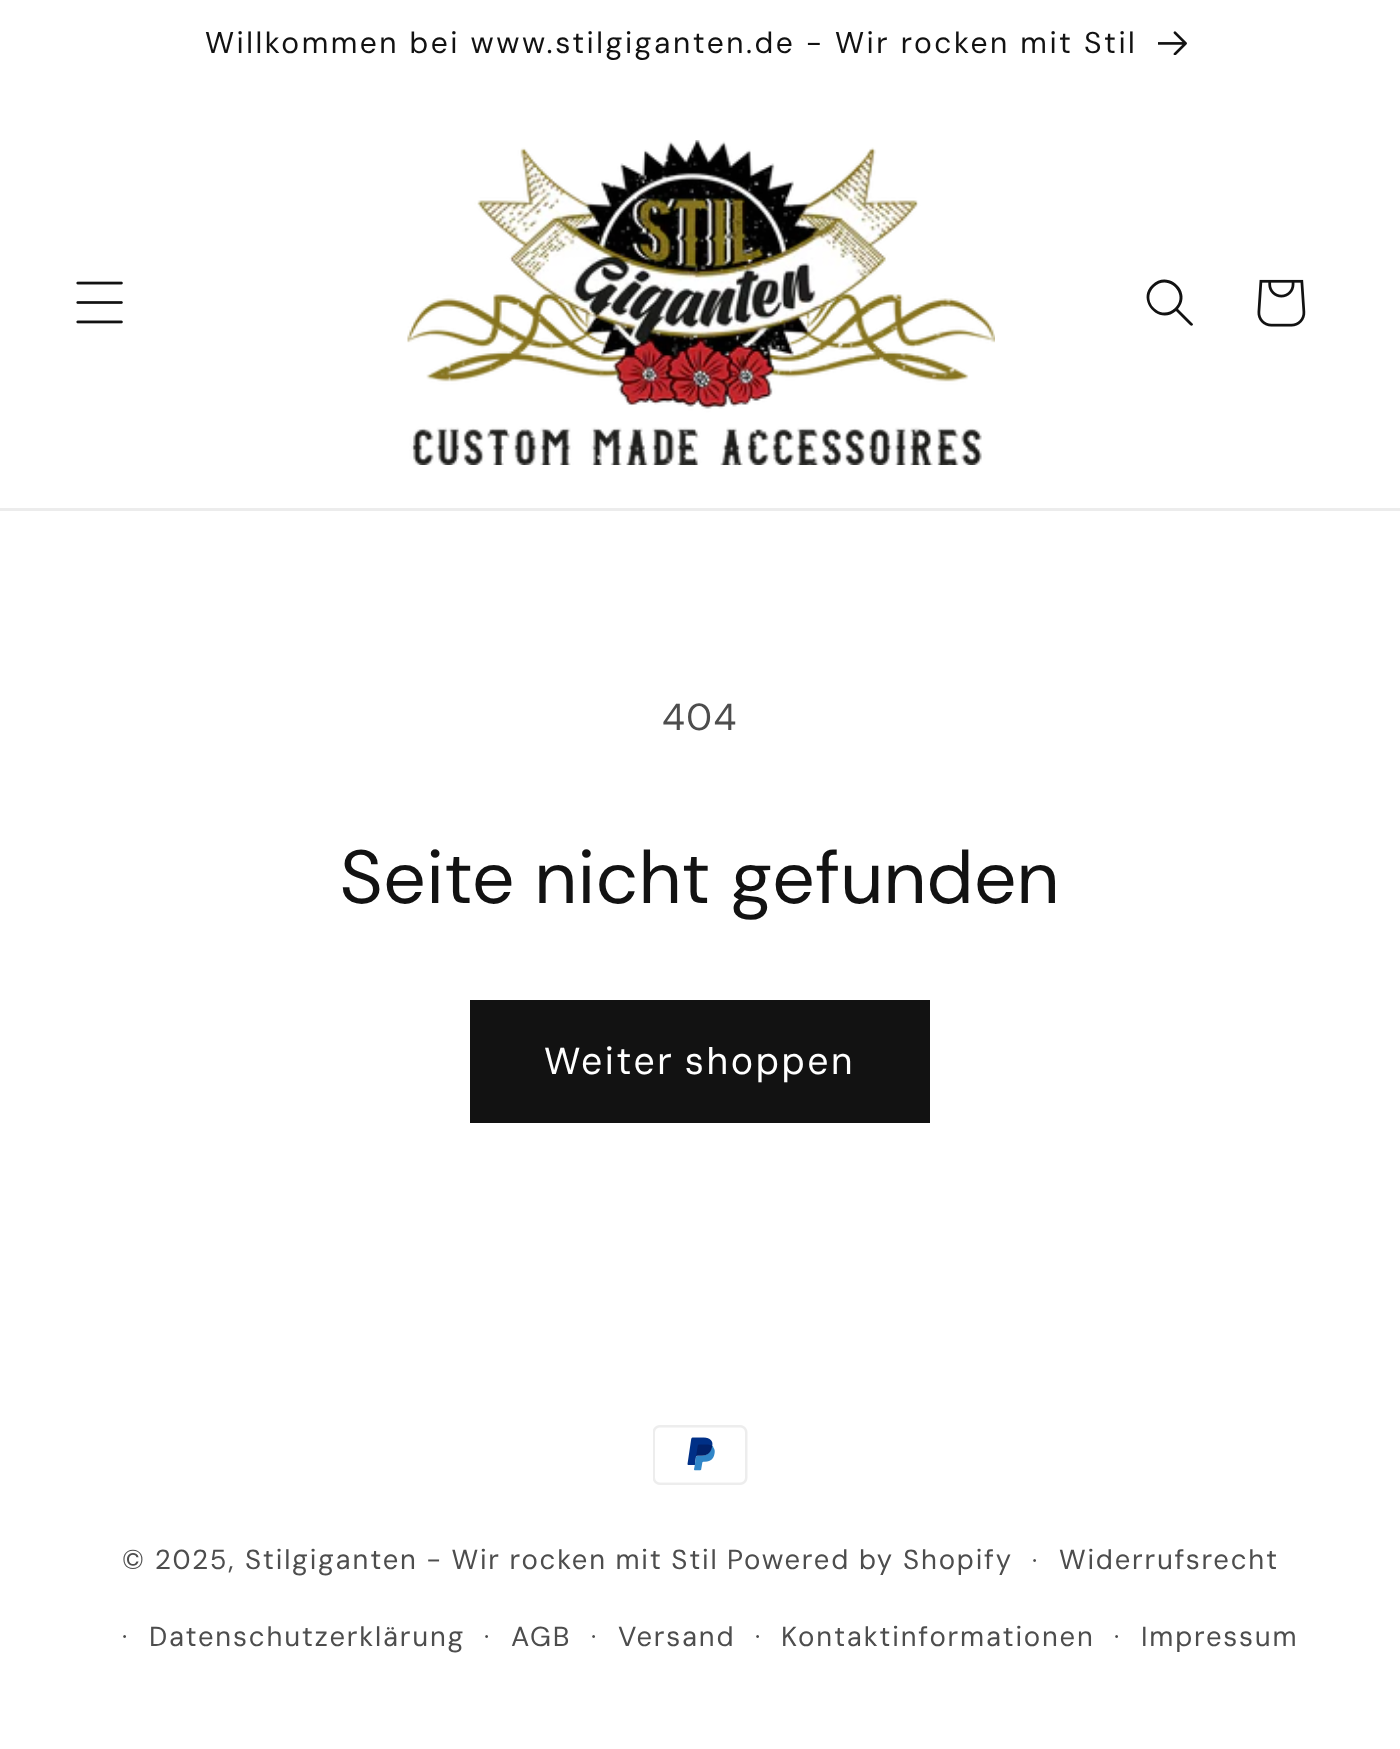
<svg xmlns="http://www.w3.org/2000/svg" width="1400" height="1749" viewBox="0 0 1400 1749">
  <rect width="100%" height="100%" fill="#ffffff"/>
  <text x="205" y="53" font-family="'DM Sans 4'" font-size="30" letter-spacing="2.5" fill="#121212">Willkommen bei www.stilgiganten.de - Wir rocken mit Stil</text>
  <image x="1158" y="31" width="29" height="24" href="img1.png"/>
  <rect x="0" y="508" width="1400" height="3" fill="#ececec"/>
  <image x="76" y="281" width="47" height="43" href="img2.png"/>
  <image x="407" y="140" width="588" height="325" href="img3.png"/>
  <path d="M1175 308C1161 322 1140 301 1154 287C1168 273 1189 294 1175 308M1176 311C1159 326 1136 300 1152 285C1168 269 1193 292 1178 309L1193 324C1193 326 1191 326 1190 325Z" fill="#121212" fill-rule="evenodd"/>
  <image x="1257" y="279" width="49" height="48" href="img4.png"/>
  <text x="662" y="730" font-family="DM Sans" font-size="37.5" letter-spacing="1.5" fill="#4d4d4d">404</text>
  <text x="340" y="903" font-family="'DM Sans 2'" font-size="75" letter-spacing="1.5" fill="#121212">Seite nicht gefunden</text>
  <rect x="470" y="1000" width="460" height="123" fill="#121212"/>
  <text x="544" y="1074" word-spacing="-2" font-family="'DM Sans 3'" font-size="37.5" letter-spacing="2.5" fill="#ffffff">Weiter shoppen</text>
  <image x="653" y="1425" width="95" height="60" href="img5.png"/>
  <text x="1032" y="1569" font-family="'DM Sans 3'" font-size="25" letter-spacing="1.75" fill="#4d4d4d">·</text>
  <text x="1059" y="1569" font-family="'DM Sans 3'" font-size="27.5" letter-spacing="1.75" fill="#4d4d4d">Widerrufsrecht</text>
  <text x="122" y="1645" font-family="'DM Sans 3'" font-size="25" letter-spacing="1.75" fill="#4d4d4d">·</text>
  <text x="149" y="1646" font-family="'DM Sans 3'" font-size="27.5" letter-spacing="1.75" fill="#4d4d4d">Datenschutzerklärung</text>
  <text x="484" y="1645" font-family="'DM Sans 3'" font-size="25" letter-spacing="1.75" fill="#4d4d4d">·</text>
  <text x="511" y="1646" font-family="'DM Sans 3'" font-size="27.5" letter-spacing="1.75" fill="#4d4d4d">AGB</text>
  <text x="591" y="1645" font-family="'DM Sans 3'" font-size="25" letter-spacing="1.75" fill="#4d4d4d">·</text>
  <text x="618" y="1646" font-family="'DM Sans 3'" font-size="27.5" letter-spacing="1.75" fill="#4d4d4d">Versand</text>
  <text x="755" y="1645" font-family="'DM Sans 3'" font-size="25" letter-spacing="1.75" fill="#4d4d4d">·</text>
  <text x="781" y="1646" font-family="'DM Sans 3'" font-size="27.5" letter-spacing="1.75" fill="#4d4d4d">Kontaktinformationen</text>
  <text x="1114" y="1645" font-family="'DM Sans 3'" font-size="25" letter-spacing="1.75" fill="#4d4d4d">·</text>
  <text x="1141" y="1646" font-family="'DM Sans 3'" font-size="27.5" letter-spacing="1.75" fill="#4d4d4d">Impressum</text>
  <text x="122" y="1569" font-family="'DM Sans 3'" font-size="27.5" letter-spacing="1.75" fill="#4d4d4d">© 2025,</text>
  <text x="245" y="1569" word-spacing="-0.5" font-family="'DM Sans 3'" font-size="27.5" letter-spacing="1.75" fill="#4d4d4d">Stilgiganten - Wir rocken mit Stil</text>
  <text x="727" y="1569" font-family="'DM Sans 3'" font-size="27.5" letter-spacing="1.75" fill="#4d4d4d">Powered by Shopify</text>
</svg>
